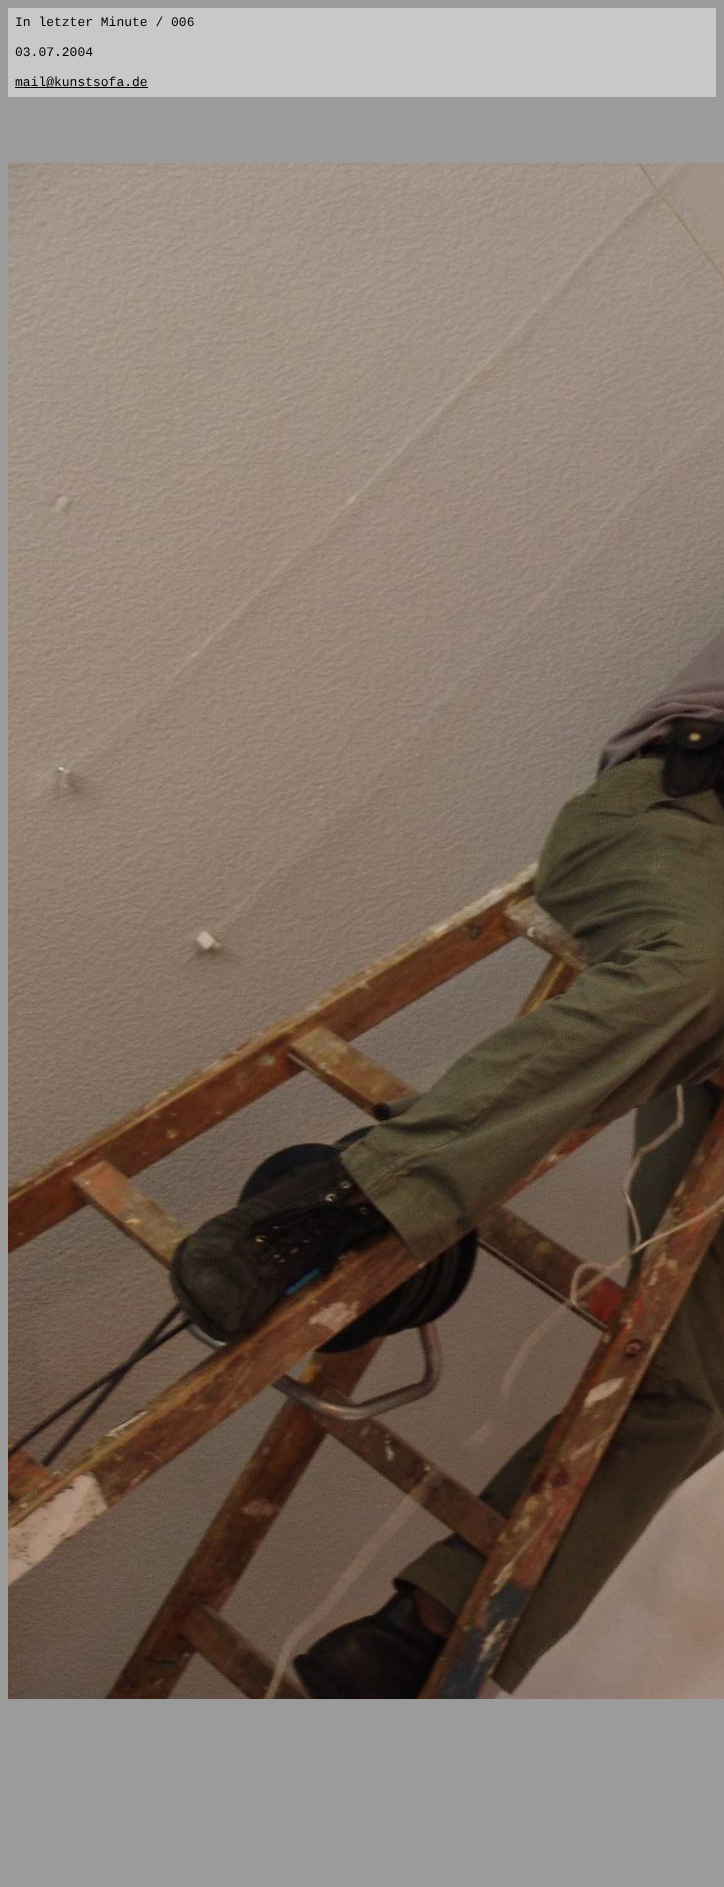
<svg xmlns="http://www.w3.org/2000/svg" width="724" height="1887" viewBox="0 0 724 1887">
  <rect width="100%" height="100%" fill="#9b9b9b"/>
  <rect x="8" y="8" width="708" height="89" fill="#c8c8c8"/>
  <text x="15" y="26" font-family="Liberation Mono" font-size="13" fill="#000000">In letzter Minute / 006</text>
  <text x="15" y="56" font-family="Liberation Mono" font-size="13" fill="#000000">03.07.2004</text>
  <rect x="15" y="87" width="133" height="1" fill="#010101"/>
  <text x="15" y="86" font-family="Liberation Mono" font-size="13" fill="#000000">mail@kunstsofa.de</text>
  <image x="8" y="163" width="716" height="1536" href="img1.png"/>
</svg>
